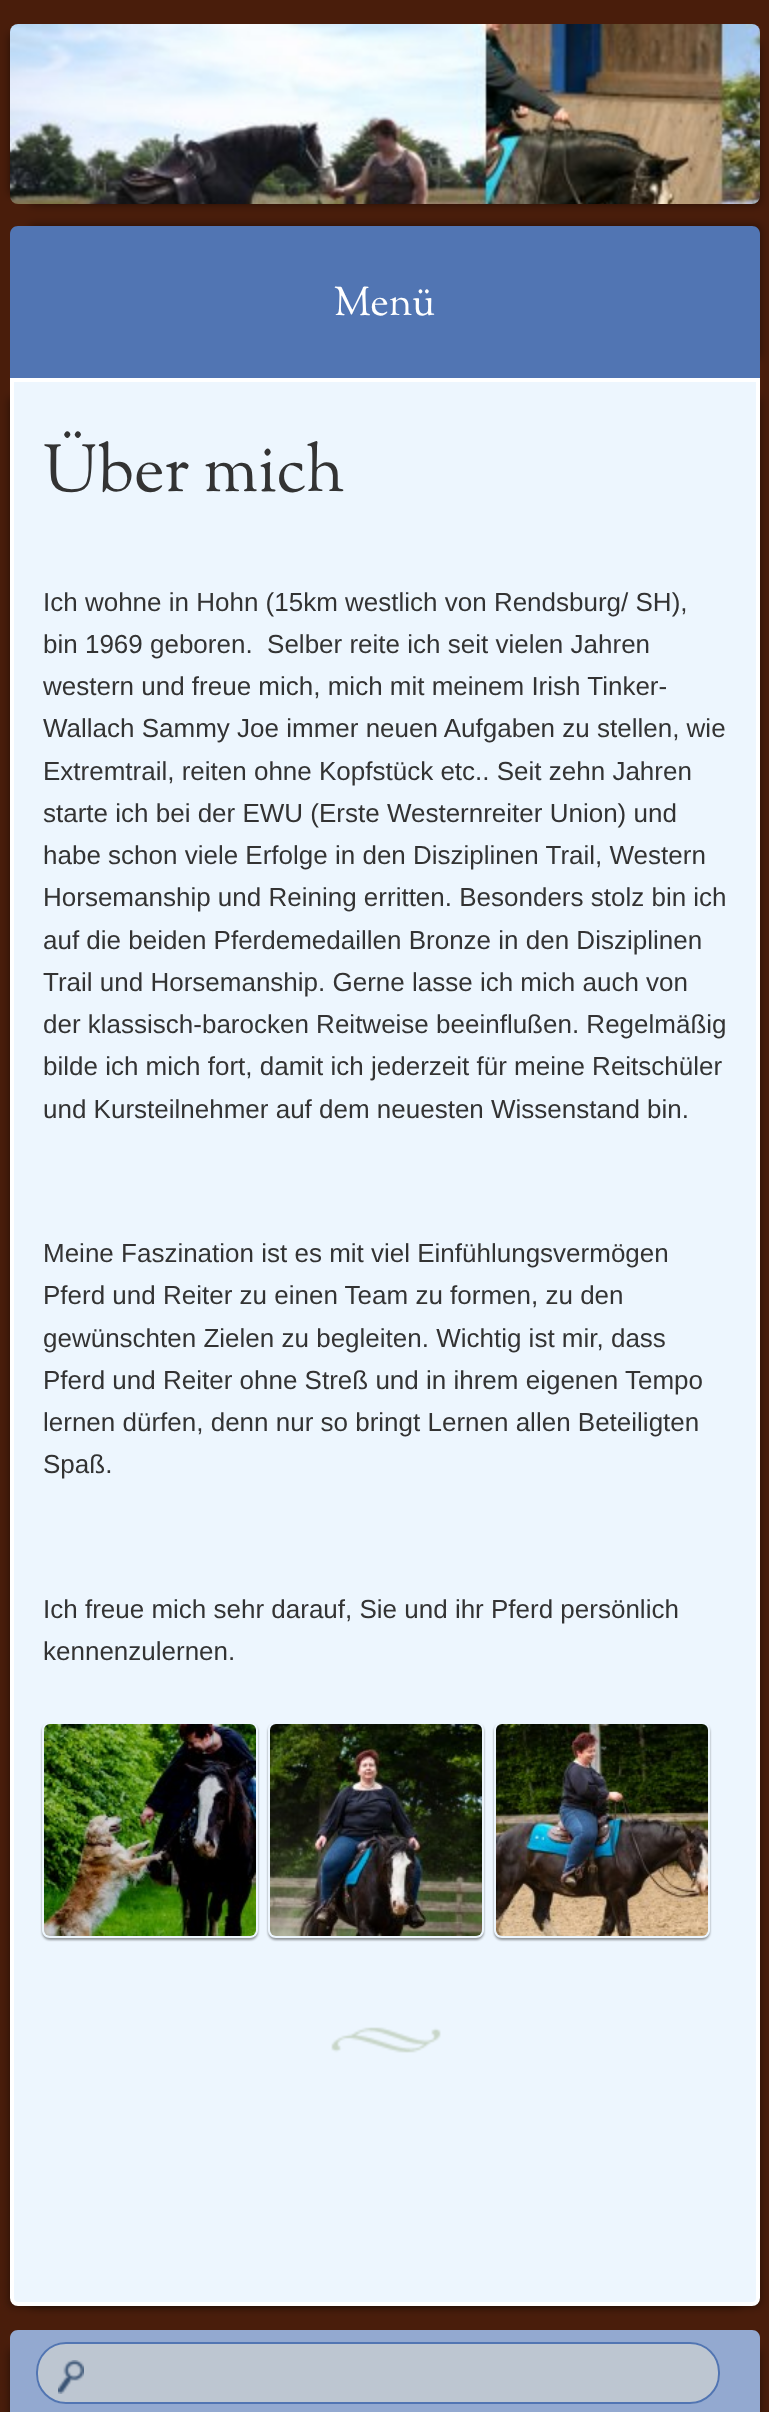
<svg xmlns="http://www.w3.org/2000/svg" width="769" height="2412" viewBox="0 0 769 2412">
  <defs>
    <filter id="blur1" x="-50%" y="-200%" width="200%" height="500%"><feGaussianBlur stdDeviation="5"/></filter>
    <clipPath id="clip1"><path d="M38 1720H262V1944H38ZM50 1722H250C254.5 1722 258 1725.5 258 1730V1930C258 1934.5 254.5 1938 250 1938H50C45.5 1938 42 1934.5 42 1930V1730C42 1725.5 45.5 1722 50 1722Z" clip-rule="evenodd"/></clipPath>
    <filter id="blur2" x="-50%" y="-200%" width="200%" height="500%"><feGaussianBlur stdDeviation="1"/></filter>
    <clipPath id="clip2"><path d="M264 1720H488V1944H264ZM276 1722H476C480.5 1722 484 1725.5 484 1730V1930C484 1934.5 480.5 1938 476 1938H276C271.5 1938 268 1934.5 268 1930V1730C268 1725.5 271.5 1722 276 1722Z" clip-rule="evenodd"/></clipPath>
    <clipPath id="clip3"><path d="M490 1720H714V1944H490ZM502 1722H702C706.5 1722 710 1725.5 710 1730V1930C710 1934.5 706.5 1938 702 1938H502C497.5 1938 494 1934.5 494 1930V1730C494 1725.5 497.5 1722 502 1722Z" clip-rule="evenodd"/></clipPath>
  </defs>
  <rect width="100%" height="100%" fill="#491d0b"/>
  <rect x="10" y="34" width="730" height="160" fill="#000000" fill-opacity="0.5" filter="url(#blur1)"/>
  <rect x="30" y="44" width="730" height="160" fill="#000000" fill-opacity="0.5" filter="url(#blur1)"/>
  <image x="10" y="24" width="750" height="180" href="img1.png"/>
  <rect x="30" y="226" width="730" height="132" fill="#000000" fill-opacity="0.5" filter="url(#blur1)"/>
  <path d="M18 226H752C756.5 226 760 229.5 760 234V378H10V234C10 229.5 13.5 226 18 226Z" fill="#5175b3"/>
  <text x="334" y="315" font-family="Sorts Mill Goudy" font-size="40" fill="#ffffff">Menü</text>
  <rect x="10" y="398" width="730" height="1908" fill="#000000" fill-opacity="0.5" filter="url(#blur1)"/>
  <rect x="30" y="398" width="730" height="1908" fill="#000000" fill-opacity="0.5" filter="url(#blur1)"/>
  <path d="M12 380H758V2298C758 2301.5 755.5 2304 752 2304H18C14.5 2304 12 2301.5 12 2298Z" fill="#edf6fe" stroke="#ffffff" stroke-width="4"/>
  <image x="331" y="2027" width="110" height="26" href="img2.png"/>
  <text x="43" y="491" font-family="Sorts Mill Goudy" font-size="66" fill="#333333">Über mich</text>
  <text x="43" y="611" font-family="Liberation Sans" font-size="26" fill="#333333">Ich wohne in Hohn (15km westlich von Rendsburg/ SH),</text>
  <text x="43" y="653" font-family="Liberation Sans" font-size="26" fill="#333333" xml:space="preserve">bin 1969 geboren.  Selber reite ich seit vielen Jahren</text>
  <text x="43" y="695" font-family="Liberation Sans" font-size="26" fill="#333333">western und freue mich, mich mit meinem Irish Tinker-</text>
  <text x="43" y="737" font-family="Liberation Sans" font-size="26" fill="#333333">Wallach Sammy Joe immer neuen Aufgaben zu stellen, wie</text>
  <text x="43" y="780" font-family="Liberation Sans" font-size="26" fill="#333333">Extremtrail, reiten ohne Kopfstück etc.. Seit zehn Jahren</text>
  <text x="43" y="822" font-family="Liberation Sans" font-size="26" fill="#333333">starte ich bei der EWU (Erste Westernreiter Union) und</text>
  <text x="43" y="864" font-family="Liberation Sans" font-size="26" fill="#333333">habe schon viele Erfolge in den Disziplinen Trail, Western</text>
  <text x="43" y="906" font-family="Liberation Sans" font-size="26" fill="#333333">Horsemanship und Reining erritten. Besonders stolz bin ich</text>
  <text x="43" y="949" font-family="Liberation Sans" font-size="26" fill="#333333">auf die beiden Pferdemedaillen Bronze in den Disziplinen</text>
  <text x="43" y="991" font-family="Liberation Sans" font-size="26" fill="#333333">Trail und Horsemanship. Gerne lasse ich mich auch von</text>
  <text x="43" y="1033" font-family="Liberation Sans" font-size="26" fill="#333333">der klassisch-barocken Reitweise beeinflußen. Regelmäßig</text>
  <text x="43" y="1075" font-family="Liberation Sans" font-size="26" fill="#333333">bilde ich mich fort, damit ich jederzeit für meine Reitschüler</text>
  <text x="43" y="1118" font-family="Liberation Sans" font-size="26" fill="#333333">und Kursteilnehmer auf dem neuesten Wissenstand bin.</text>
  <text x="43" y="1262" font-family="Liberation Sans" font-size="26" fill="#333333">Meine Faszination ist es mit viel Einfühlungsvermögen</text>
  <text x="43" y="1304" font-family="Liberation Sans" font-size="26" fill="#333333">Pferd und Reiter zu einen Team zu formen, zu den</text>
  <text x="43" y="1347" font-family="Liberation Sans" font-size="26" fill="#333333">gewünschten Zielen zu begleiten. Wichtig ist mir, dass</text>
  <text x="43" y="1389" font-family="Liberation Sans" font-size="26" fill="#333333">Pferd und Reiter ohne Streß und in ihrem eigenen Tempo</text>
  <text x="43" y="1431" font-family="Liberation Sans" font-size="26" fill="#333333">lernen dürfen, denn nur so bringt Lernen allen Beteiligten</text>
  <text x="43" y="1473" font-family="Liberation Sans" font-size="26" fill="#333333">Spaß.</text>
  <text x="43" y="1618" font-family="Liberation Sans" font-size="26" fill="#333333">Ich freue mich sehr darauf, Sie und ihr Pferd persönlich</text>
  <text x="43" y="1660" font-family="Liberation Sans" font-size="26" fill="#333333">kennenzulernen.</text>
  <g clip-path="url(#clip1)">
    <rect x="42" y="1724" width="216" height="216" rx="8" fill="#000000" fill-opacity="0.4" filter="url(#blur2)"/>
  </g>
  <image x="44" y="1724" width="212" height="212" href="img3.png"/>
  <g clip-path="url(#clip2)">
    <rect x="268" y="1724" width="216" height="216" rx="8" fill="#000000" fill-opacity="0.4" filter="url(#blur2)"/>
  </g>
  <image x="270" y="1724" width="212" height="212" href="img4.png"/>
  <g clip-path="url(#clip3)">
    <rect x="494" y="1724" width="216" height="216" rx="8" fill="#000000" fill-opacity="0.4" filter="url(#blur2)"/>
  </g>
  <image x="496" y="1724" width="212" height="212" href="img5.png"/>
  <rect x="10" y="2350" width="730" height="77" fill="#000000" fill-opacity="0.5" filter="url(#blur1)"/>
  <rect x="30" y="2350" width="730" height="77" fill="#000000" fill-opacity="0.5" filter="url(#blur1)"/>
  <path d="M18 2330H752C756.5 2330 760 2333.5 760 2338V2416H10V2338C10 2333.5 13.5 2330 18 2330Z" fill="#93a9d0"/>
  <rect x="36" y="2342" width="684" height="62" rx="30" fill="#bdc6d1"/>
  <image x="58" y="2360" width="26" height="34" href="img6.png"/>
  <rect x="37" y="2343" width="682" height="60" rx="29" fill="none" stroke="#5175b3" stroke-width="2"/>
</svg>
